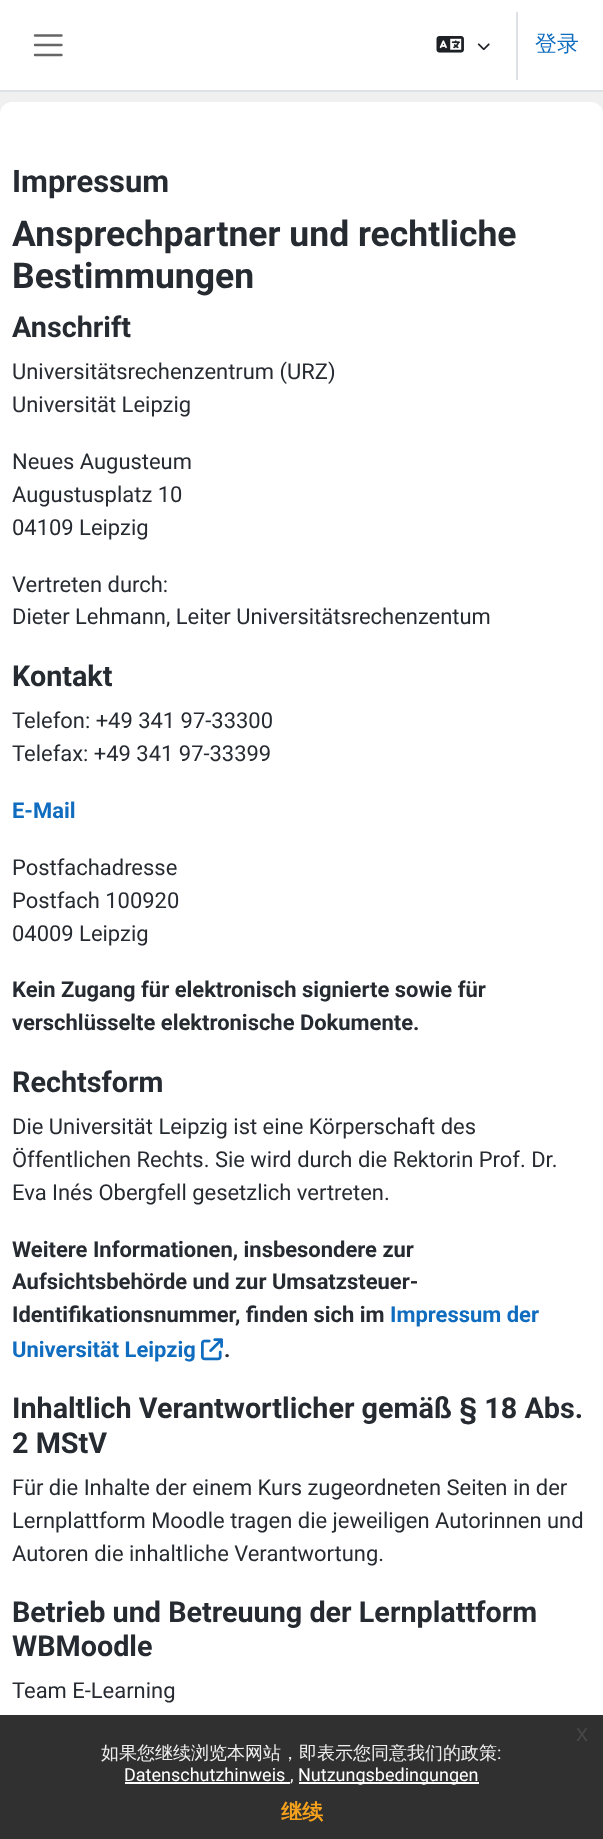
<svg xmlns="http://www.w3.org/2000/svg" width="603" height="1839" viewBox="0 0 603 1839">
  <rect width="100%" height="100%" fill="#f0f0f0"/>
  <rect x="0" y="0" width="603" height="90" fill="#ffffff"/>
  <rect x="0" y="90" width="603" height="2" fill="#dee2e6"/>
  <path d="M35 35.5H61.5M35 45H61.5M35 55H61.5" fill="none" stroke="#666666" stroke-width="2.4" stroke-linecap="round"/>
  <image x="436" y="36" width="28" height="17" href="img1.png"/>
  <image x="477" y="43" width="13" height="8" href="img2.png"/>
  <rect x="516" y="12" width="2" height="68" fill="#dee2e6"/>
  <text x="535" y="51" font-family="WenQuanYi Zen Hei" font-size="21.95" font-weight="500" fill="#0f6cbf">登录</text>
  <rect x="0" y="102" width="603" height="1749" rx="12" fill="#ffffff"/>
  <text x="12" y="192" font-family="Roboto" font-size="31" font-weight="bold" fill="#262a31">Impressum</text>
  <text x="12" y="246" font-family="Roboto" font-size="35.5" font-weight="bold" fill="#262a31">Ansprechpartner und rechtliche</text>
  <text x="12" y="288" font-family="Roboto" font-size="35.5" font-weight="bold" fill="#262a31">Bestimmungen</text>
  <text x="12" y="337" font-family="Roboto" font-size="28.75" font-weight="bold" fill="#262a31">Anschrift</text>
  <text x="12" y="379" font-family="Roboto" font-size="21.95" fill="#262a31">Universitätsrechenzentrum (URZ)</text>
  <text x="12" y="412" font-family="Roboto" font-size="21.95" fill="#262a31">Universität Leipzig</text>
  <text x="12" y="469" font-family="Roboto" font-size="21.95" fill="#262a31">Neues Augusteum</text>
  <text x="12" y="502" font-family="Roboto" font-size="21.95" fill="#262a31">Augustusplatz 10</text>
  <text x="12" y="535" font-family="Roboto" font-size="21.95" fill="#262a31">04109 Leipzig</text>
  <text x="12" y="592" font-family="Roboto" font-size="21.95" fill="#262a31">Vertreten durch:</text>
  <text x="12" y="624" font-family="Roboto" font-size="21.95" fill="#262a31">Dieter Lehmann, Leiter Universitätsrechenzentum</text>
  <text x="12" y="686" font-family="Roboto" font-size="28.75" font-weight="bold" fill="#262a31">Kontakt</text>
  <text x="12" y="728" font-family="Roboto" font-size="21.95" fill="#262a31">Telefon: +49 341 97-33300</text>
  <text x="12" y="761" font-family="Roboto" font-size="21.95" fill="#262a31">Telefax: +49 341 97-33399</text>
  <text x="12" y="818" font-family="Roboto" font-size="21.95" font-weight="bold" fill="#0f6cbf">E-Mail</text>
  <text x="12" y="875" font-family="Roboto" font-size="21.95" fill="#262a31">Postfachadresse</text>
  <text x="12" y="908" font-family="Roboto" font-size="21.95" fill="#262a31">Postfach 100920</text>
  <text x="12" y="941" font-family="Roboto" font-size="21.95" fill="#262a31">04009 Leipzig</text>
  <text x="12" y="997" font-family="Roboto" font-size="21.95" font-weight="bold" fill="#262a31">Kein Zugang für elektronisch signierte sowie für</text>
  <text x="12" y="1030" font-family="Roboto" font-size="21.95" font-weight="bold" fill="#262a31">verschlüsselte elektronische Dokumente.</text>
  <text x="12" y="1092" font-family="Roboto" font-size="28.75" font-weight="bold" fill="#262a31">Rechtsform</text>
  <text x="12" y="1134" font-family="Roboto" font-size="21.95" fill="#262a31">Die Universität Leipzig ist eine Körperschaft des</text>
  <text x="12" y="1167" font-family="Roboto" font-size="21.95" fill="#262a31">Öffentlichen Rechts. Sie wird durch die Rektorin Prof. Dr.</text>
  <text x="12" y="1200" font-family="Roboto" font-size="21.95" fill="#262a31">Eva Inés Obergfell gesetzlich vertreten.</text>
  <text x="12" y="1257" font-family="Roboto" font-size="21.95" font-weight="bold" fill="#262a31">Weitere Informationen, insbesondere zur</text>
  <text x="12" y="1289" font-family="Roboto" font-size="21.95" font-weight="bold" fill="#262a31">Aufsichtsbehörde und zur Umsatzsteuer-</text>
  <text x="12" y="1322" font-family="Roboto" font-size="21.95" font-weight="bold" fill="#262a31">Identifikationsnummer, finden sich im</text>
  <text x="390" y="1322" font-family="Roboto" font-size="21.95" font-weight="bold" fill="#0f6cbf">Impressum der</text>
  <text x="12" y="1357" font-family="Roboto" font-size="21.95" font-weight="bold" fill="#0f6cbf">Universität Leipzig</text>
  <image x="201" y="1338" width="22" height="23" href="img3.png"/>
  <text x="224" y="1357" font-family="Roboto" font-size="21.95" font-weight="bold" fill="#262a31">.</text>
  <text x="12" y="1418" font-family="Roboto" font-size="28.75" font-weight="bold" fill="#262a31">Inhaltlich Verantwortlicher gemäß § 18 Abs.</text>
  <text x="12" y="1453" font-family="Roboto" font-size="28.75" font-weight="bold" fill="#262a31">2 MStV</text>
  <text x="12" y="1495" font-family="Roboto" font-size="21.95" fill="#262a31">Für die Inhalte der einem Kurs zugeordneten Seiten in der</text>
  <text x="12" y="1528" font-family="Roboto" font-size="21.95" fill="#262a31">Lernplattform Moodle tragen die jeweiligen Autorinnen und</text>
  <text x="12" y="1561" font-family="Roboto" font-size="21.95" fill="#262a31">Autoren die inhaltliche Verantwortung.</text>
  <text x="12" y="1622" font-family="Roboto" font-size="28.75" font-weight="bold" fill="#262a31">Betrieb und Betreuung der Lernplattform</text>
  <text x="12" y="1656" font-family="Roboto" font-size="28.75" font-weight="bold" fill="#262a31">WBMoodle</text>
  <text x="12" y="1698" font-family="Roboto" font-size="21.95" fill="#262a31">Team E-Learning</text>
  <rect x="0" y="1715" width="603" height="124" fill="#191919" fill-opacity="0.9"/>
  <text x="576" y="1741" font-family="Liberation Sans" font-size="24" fill="#474747">x</text>
  <text x="101" y="1759" font-family="WenQuanYi Zen Hei" font-size="18" font-weight="500" fill="#efefef">如果您继续浏览本网站，即表示您同意我们的政策</text>
  <text x="497" y="1759" font-family="Roboto" font-size="18" fill="#efefef">:</text>
  <text x="124" y="1781" font-family="Roboto" font-size="18" fill="#ffffff">Datenschutzhinweis</text>
  <rect x="125" y="1782" width="165" height="2" fill="#ffffff"/>
  <text x="290" y="1781" font-family="Roboto" font-size="18" fill="#efefef">,</text>
  <rect x="299" y="1782" width="180" height="2" fill="#ffffff"/>
  <text x="298" y="1781" font-family="Roboto" font-size="18" fill="#ffffff">Nutzungsbedingungen</text>
  <text x="281" y="1819" font-family="WenQuanYi Zen Hei" font-size="21" font-weight="bold" fill="#f6a21d">继续</text>
</svg>
